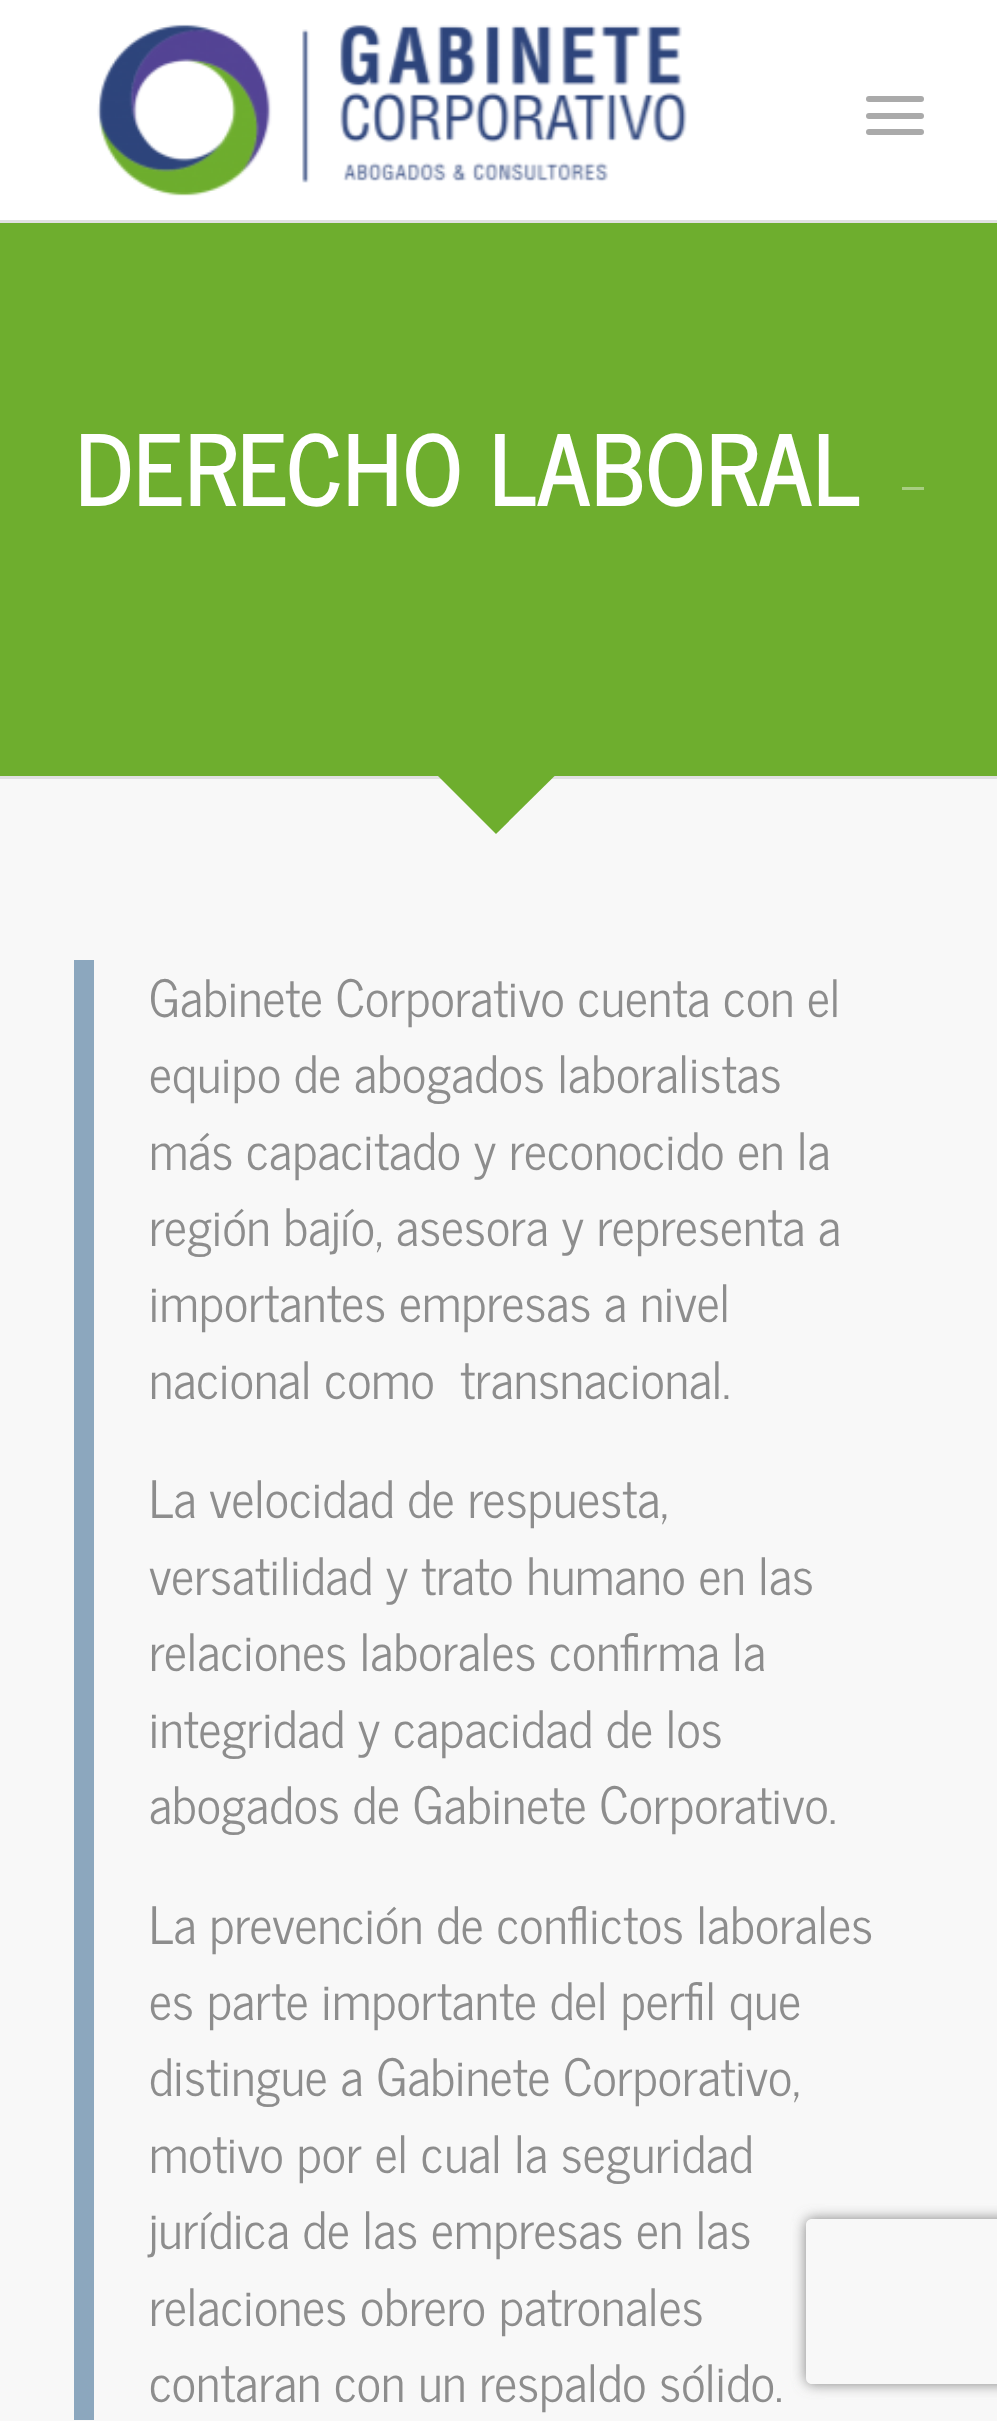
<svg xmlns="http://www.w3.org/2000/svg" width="997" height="2421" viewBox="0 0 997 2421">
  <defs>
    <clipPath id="clip1"><rect x="429" y="776" width="138" height="68"/></clipPath>
    <clipPath id="clip2"><path d="M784 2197H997V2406H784ZM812 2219H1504C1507.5 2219 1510 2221.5 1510 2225V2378C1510 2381.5 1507.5 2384 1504 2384H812C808.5 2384 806 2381.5 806 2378V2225C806 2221.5 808.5 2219 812 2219Z" clip-rule="evenodd"/></clipPath>
    <filter id="blur1" x="-50%" y="-200%" width="200%" height="500%"><feGaussianBlur stdDeviation="7"/></filter>
  </defs>
  <rect width="100%" height="100%" fill="#ffffff"/>
  <rect x="0" y="220" width="997" height="3" fill="#e1e1e1"/>
  <image x="97" y="24" width="590" height="172" href="img1.png"/>
  <rect x="866" y="113" width="58" height="6" rx="3" fill="#aaaaaa"/>
  <rect x="866" y="96" width="58" height="6" rx="3" fill="#aaaaaa"/>
  <rect x="866" y="129" width="58" height="6" rx="3" fill="#aaaaaa"/>
  <rect x="0" y="223" width="997" height="553" fill="#6eae2e"/>
  <text x="75" y="506" font-family="News Cycle" font-size="93.5" font-weight="bold" letter-spacing="2.75" fill="#ffffff">DERECHO LABORAL</text>
  <rect x="902" y="487" width="22" height="3" fill="#a8ce82"/>
  <rect x="0" y="779" width="997" height="1642" fill="#f8f8f8"/>
  <rect x="0" y="776" width="997" height="3" fill="#e1e1e1"/>
  <g clip-path="url(#clip1)">
    <path d="M496 640L594 737L496 834L399 737Z" fill="#6eae2e"/>
  </g>
  <rect x="74" y="960" width="20" height="1460" fill="#8ca7be"/>
  <text x="149" y="1017" font-family="News Cycle" font-size="51" fill="#8d8d8d">Gabinete Corporativo cuenta con el</text>
  <text x="149" y="1093" font-family="News Cycle" font-size="51" fill="#8d8d8d">equipo de abogados laboralistas</text>
  <text x="149" y="1170" font-family="News Cycle" font-size="51" fill="#8d8d8d">más capacitado y reconocido en la</text>
  <text x="149" y="1246" font-family="News Cycle" font-size="51" fill="#8d8d8d">región bajío, asesora y representa a</text>
  <text x="149" y="1322" font-family="News Cycle" font-size="51" fill="#8d8d8d">importantes empresas a nivel</text>
  <text x="149" y="1399" font-family="News Cycle" font-size="51" fill="#8d8d8d">nacional como</text>
  <text x="460" y="1399" font-family="News Cycle" font-size="51" fill="#8d8d8d">transnacional.</text>
  <text x="149" y="1518" font-family="News Cycle" font-size="51" fill="#8d8d8d">La velocidad de respuesta,</text>
  <text x="149" y="1595" font-family="News Cycle" font-size="51" fill="#8d8d8d">versatilidad y trato humano en las</text>
  <text x="149" y="1671" font-family="News Cycle" font-size="51" fill="#8d8d8d">relaciones laborales confirma la</text>
  <text x="149" y="1748" font-family="News Cycle" font-size="51" fill="#8d8d8d">integridad y capacidad de los</text>
  <text x="149" y="1824" font-family="News Cycle" font-size="51" fill="#8d8d8d">abogados de Gabinete Corporativo.</text>
  <text x="149" y="1944" font-family="News Cycle" font-size="51" fill="#8d8d8d">La prevención de conflictos laborales</text>
  <text x="149" y="2020" font-family="News Cycle" font-size="51" fill="#8d8d8d">es parte importante del perfil que</text>
  <text x="149" y="2096" font-family="News Cycle" font-size="51" fill="#8d8d8d">distingue a Gabinete Corporativo,</text>
  <text x="149" y="2173" font-family="News Cycle" font-size="51" fill="#8d8d8d">motivo por el cual la seguridad</text>
  <text x="149" y="2249" font-family="News Cycle" font-size="51" fill="#8d8d8d">jurídica de las empresas en las</text>
  <text x="149" y="2326" font-family="News Cycle" font-size="51" fill="#8d8d8d">relaciones obrero patronales</text>
  <text x="149" y="2402" font-family="News Cycle" font-size="51" fill="#8d8d8d">contaran con un respaldo sólido.</text>
  <g clip-path="url(#clip2)">
    <rect x="806" y="2219" width="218" height="165" rx="6" fill="#808080" filter="url(#blur1)"/>
  </g>
</svg>
